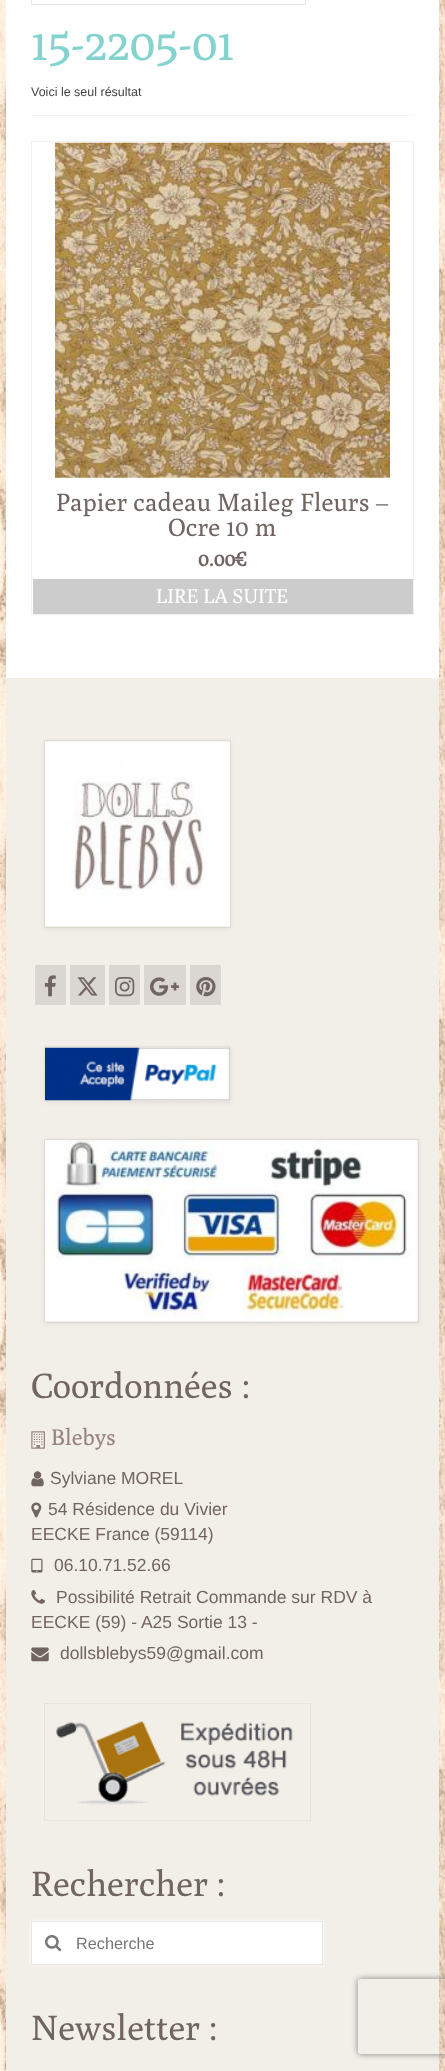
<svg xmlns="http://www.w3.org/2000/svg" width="445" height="2071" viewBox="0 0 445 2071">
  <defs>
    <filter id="blur1" x="-50%" y="-200%" width="200%" height="500%"><feGaussianBlur stdDeviation="2"/></filter>
    <clipPath id="clip1"><path d="M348 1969H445V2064H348ZM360.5 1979H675.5C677 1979 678 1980 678 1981.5V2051.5C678 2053 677 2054 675.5 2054H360.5C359 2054 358 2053 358 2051.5V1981.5C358 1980 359 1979 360.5 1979Z" clip-rule="evenodd"/></clipPath>
    <filter id="blur2" x="-50%" y="-200%" width="200%" height="500%"><feGaussianBlur stdDeviation="3"/></filter>
  </defs>
  <rect width="100%" height="100%" fill="#ffffff"/>
  <image x="0" y="0" width="445" height="2071" href="img1.png"/>
  <rect x="6" y="0" width="433" height="678" fill="#ffffff"/>
  <rect x="31" y="115" width="383" height="1" fill="#f2f2f2"/>
  <rect x="31.5" y="-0.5" width="274" height="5" fill="none" stroke="#e6e6e6"/>
  <text x="31" y="60" font-family="Poly" font-size="47.5" fill="#84d3ce">15-2205-01</text>
  <text x="31" y="96" font-family="Liberation Sans" font-size="12.5" fill="#444444">Voici le seul résultat</text>
  <rect x="31.5" y="141.5" width="382" height="473" fill="none" stroke="#f2f2f2"/>
  <image x="55" y="142" width="335" height="336" href="img2.png"/>
  <text x="56" y="511" font-family="Poly" font-size="25" fill="#716562">Papier cadeau Maileg Fleurs –</text>
  <text x="168" y="536" font-family="Poly" font-size="25" fill="#716562">Ocre 10 m</text>
  <text x="198" y="566" font-family="Poly" font-size="20" font-weight="bold" fill="#716562">0.00€</text>
  <rect x="33" y="579" width="380" height="35" fill="#cccccc"/>
  <text x="156" y="603" font-family="Poly" font-size="20" fill="#ffffff">LIRE LA SUITE</text>
  <rect x="6" y="678" width="433" height="1393" fill="#f2eee8"/>
  <rect x="44" y="741" width="187" height="188" fill="#000000" fill-opacity="0.06" filter="url(#blur1)"/>
  <rect x="44.5" y="740.5" width="186" height="187" fill="none" stroke="#000000" stroke-opacity="0.05"/>
  <image x="45" y="741" width="185" height="186" href="img3.png"/>
  <rect x="35" y="965" width="31" height="40" fill="#dad6d1"/>
  <image x="44" y="975" width="12" height="22" href="img4.png"/>
  <rect x="70" y="965" width="35" height="40" fill="#dad6d1"/>
  <image x="77" y="977" width="21" height="19" href="img5.png"/>
  <rect x="109" y="965" width="31" height="40" fill="#dad6d1"/>
  <image x="115" y="976" width="20" height="21" href="img6.png"/>
  <rect x="144" y="965" width="42" height="40" fill="#dad6d1"/>
  <image x="150" y="977" width="29" height="19" href="img7.png"/>
  <rect x="190" y="965" width="31" height="40" fill="#dad6d1"/>
  <image x="196" y="977" width="20" height="20" href="img8.png"/>
  <rect x="44" y="1048" width="187" height="55" fill="#000000" fill-opacity="0.06" filter="url(#blur1)"/>
  <rect x="44.5" y="1046.5" width="186" height="54" fill="none" stroke="#e6e2dc"/>
  <image x="45" y="1047" width="185" height="54" href="img9.png"/>
  <rect x="44" y="1140" width="375" height="184" fill="#000000" fill-opacity="0.06" filter="url(#blur1)"/>
  <rect x="44.5" y="1139.5" width="374" height="183" fill="none" stroke="#000000" stroke-opacity="0.05"/>
  <image x="45" y="1140" width="373" height="182" href="img10.png"/>
  <text x="31" y="1398" font-family="Poly" font-size="35" fill="#716562">Coordonnées :</text>
  <image x="31" y="1431" width="14" height="18" href="img11.png"/>
  <text x="51" y="1445" font-family="Poly" font-size="22.5" fill="#98837f">Blebys</text>
  <image x="31" y="1471" width="13" height="16" href="img12.png"/>
  <text x="50" y="1484" font-family="Liberation Sans" font-size="17.5" fill="#716562">Sylviane MOREL</text>
  <image x="31" y="1502" width="11" height="16" href="img13.png"/>
  <text x="48" y="1515" font-family="Liberation Sans" font-size="17.5" fill="#716562">54 Résidence du Vivier</text>
  <text x="31" y="1540" font-family="Liberation Sans" font-size="17.5" fill="#716562">EECKE France (59114)</text>
  <image x="31" y="1558" width="12" height="15" href="img14.png"/>
  <text x="54" y="1571" font-family="Liberation Sans" font-size="17.5" fill="#716562">06.10.71.52.66</text>
  <image x="31" y="1590" width="14" height="14" href="img15.png"/>
  <text x="56" y="1603" font-family="Liberation Sans" font-size="17.5" fill="#716562">Possibilité Retrait Commande sur RDV à</text>
  <text x="31" y="1628" font-family="Liberation Sans" font-size="17.5" fill="#716562">EECKE (59) - A25 Sortie 13 -</text>
  <image x="31" y="1647" width="18" height="15" href="img16.png"/>
  <text x="60" y="1659" font-family="Liberation Sans" font-size="17.5" fill="#716562">dollsblebys59@gmail.com</text>
  <rect x="44.5" y="1703.5" width="266" height="117" fill="none" stroke="#e6e2dc"/>
  <image x="56" y="1721" width="237" height="84" href="img17.png"/>
  <text x="31" y="1896" font-family="Poly" font-size="35" fill="#716562">Rechercher :</text>
  <rect x="31" y="1921" width="292" height="44" fill="#ffffff" filter="url(#blur1)"/>
  <rect x="31.5" y="1921.5" width="291" height="43" fill="#ffffff" stroke="#e7e7e7"/>
  <image x="45" y="1935" width="17" height="17" href="img18.png"/>
  <text x="76" y="1949" font-family="Liberation Sans" font-size="16.25" fill="#757575">Recherche</text>
  <text x="31" y="2040" font-family="Poly" font-size="35" fill="#716562">Newsletter :</text>
  <g clip-path="url(#clip1)">
    <rect x="358" y="1979" width="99" height="75" rx="2.5" fill="#808080" filter="url(#blur2)"/>
  </g>
</svg>
